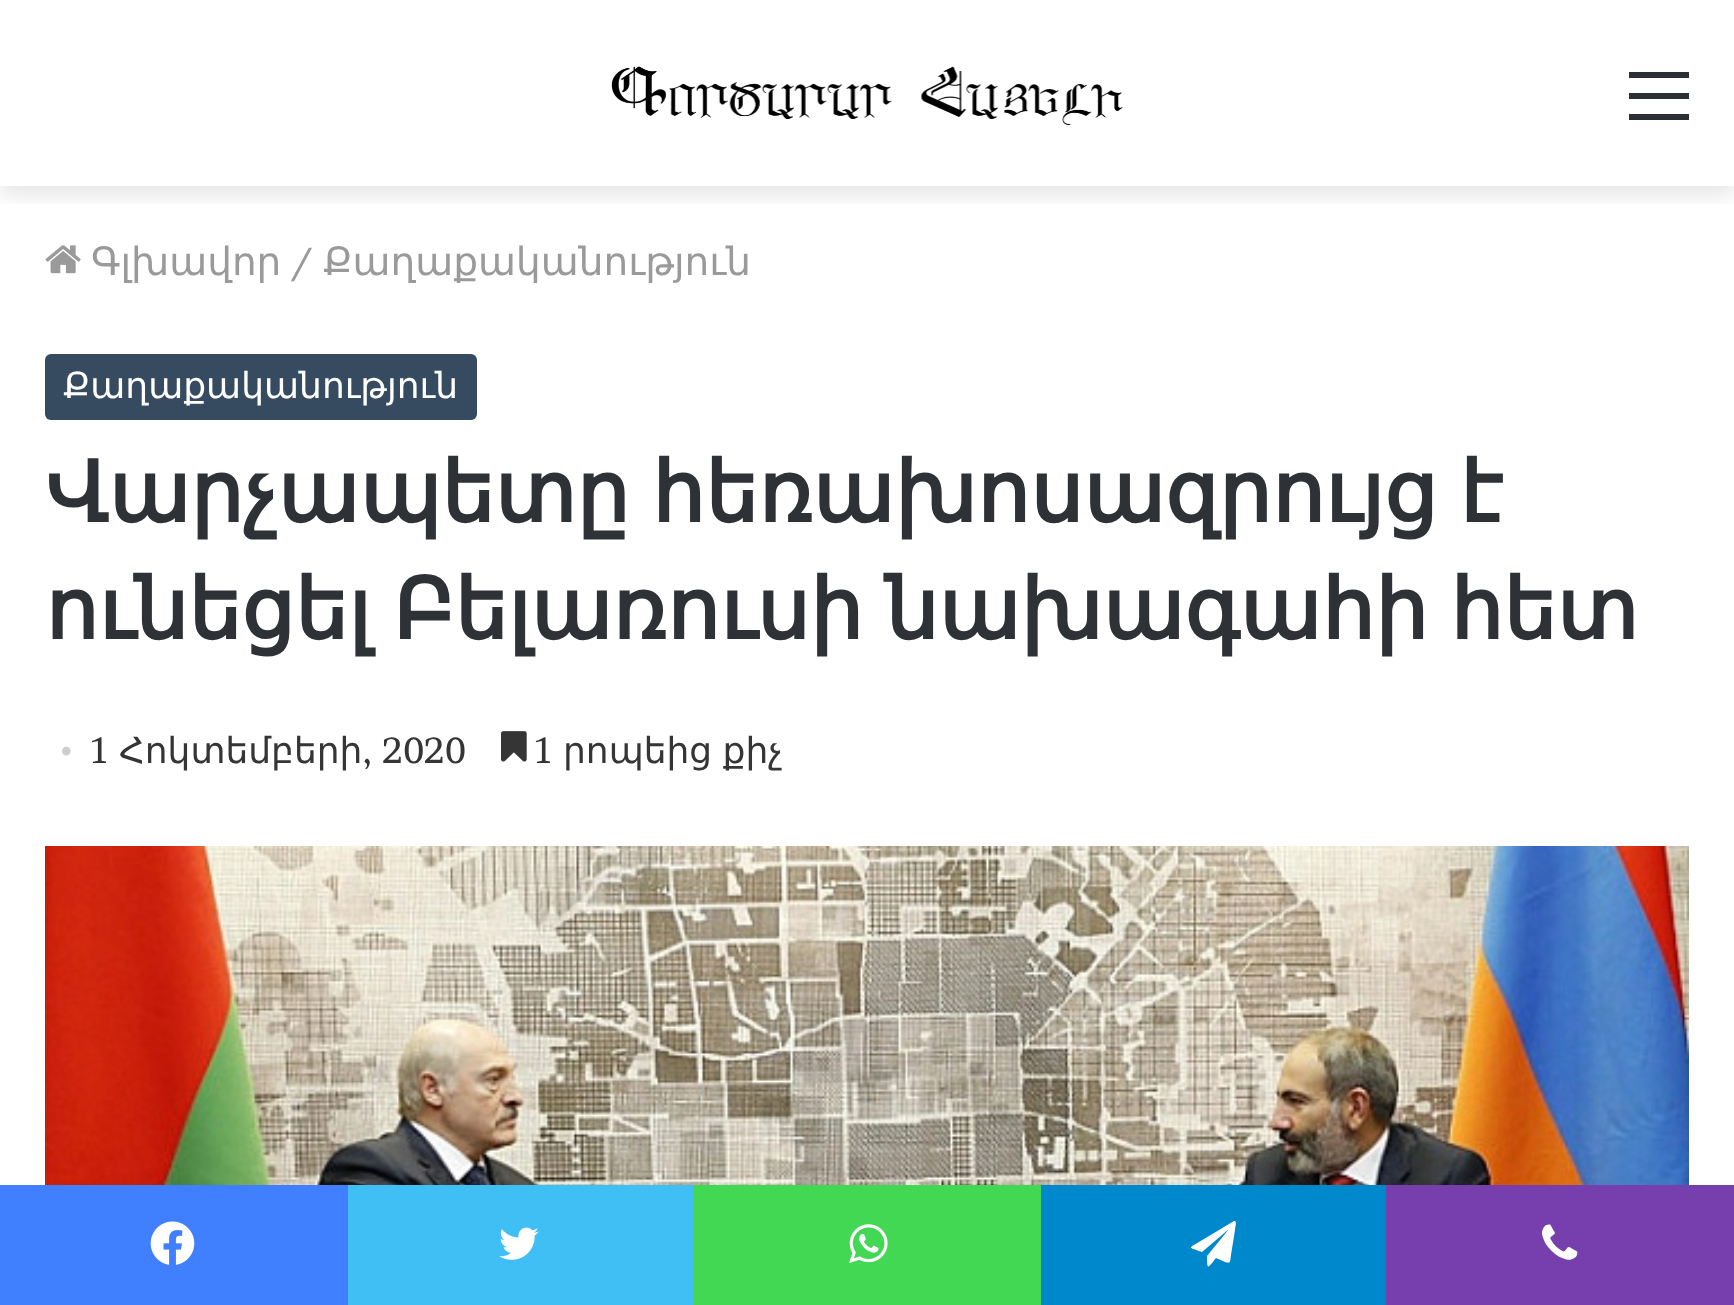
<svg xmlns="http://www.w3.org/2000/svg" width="1734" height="1305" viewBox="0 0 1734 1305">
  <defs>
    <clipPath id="clip1"><rect x="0" y="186" width="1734" height="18"/></clipPath>
    <filter id="blur1" x="-50%" y="-200%" width="200%" height="500%"><feGaussianBlur stdDeviation="10.5"/></filter>
  </defs>
  <rect width="100%" height="100%" fill="#ffffff"/>
  <g clip-path="url(#clip1)">
    <rect x="0" y="9" width="1734" height="186" fill="#000000" fill-opacity="0.1" filter="url(#blur1)"/>
  </g>
  <image x="611" y="66" width="512" height="60" href="img1.png"/>
  <rect x="1629" y="93" width="60" height="6" fill="#2c2f34"/>
  <rect x="1629" y="72" width="60" height="6" fill="#2c2f34"/>
  <rect x="1629" y="114" width="60" height="6" fill="#2c2f34"/>
  <image x="45" y="245" width="36" height="29" href="img2.png"/>
  <text x="91" y="275" font-family="DejaVu Sans" font-size="39" fill="#9a9a9a">Գլխավոր</text>
  <text x="290" y="275" font-family="Brawler" font-size="39" fill="#9a9a9a">/</text>
  <text x="323" y="275" font-family="DejaVu Sans" font-size="39" fill="#9a9a9a">Քաղաքականություն</text>
  <rect x="45" y="354" width="432" height="66" rx="6" fill="#364b60"/>
  <text x="63" y="398" font-family="DejaVu Sans" font-size="36" fill="#ffffff">Քաղաքականություն</text>
  <text x="45" y="522" word-spacing="-4.5" font-family="DejaVu Sans" font-size="84" font-weight="bold" fill="#2e3136">Վարչապետը հեռախոսազրույց է</text>
  <text x="45" y="639" word-spacing="-4.5" font-family="DejaVu Sans" font-size="84" font-weight="bold" fill="#2e3136">ունեցել Բելառուսի նախագահի հետ</text>
  <text x="60" y="763" font-family="Liberation Serif" font-size="36" fill="#cdcdcd">•</text>
  <text x="91" y="763" font-family="Brawler" font-size="36" fill="#353535">1</text>
  <text x="119" y="763" font-family="DejaVu Sans" font-size="36" fill="#353535">Հոկտեմբերի</text>
  <text x="363" y="763" font-family="Brawler" font-size="36" fill="#353535">, 2020</text>
  <image x="501" y="731" width="26" height="31" href="img3.png"/>
  <text x="535" y="763" font-family="Brawler" font-size="36" fill="#353535">1</text>
  <text x="563" y="763" word-spacing="-1" font-family="DejaVu Sans" font-size="36" fill="#353535">րոպեից քիչ</text>
  <image x="45" y="846" width="1644" height="339" href="img4.png"/>
  <rect x="0" y="1185" width="348" height="120" fill="#4080ff"/>
  <image x="150" y="1221" width="45" height="44" href="img5.png"/>
  <rect x="348" y="1185" width="345" height="120" fill="#40bff5"/>
  <image x="499" y="1227" width="40" height="33" href="img6.png"/>
  <rect x="693" y="1185" width="348" height="120" fill="#43d854"/>
  <image x="849" y="1224" width="39" height="40" href="img7.png"/>
  <rect x="1041" y="1185" width="345" height="120" fill="#0088cc"/>
  <path d="M1235 1221C1237 1223 1235 1227 1235 1230L1231 1255C1230 1262 1231 1264 1225 1262L1216 1258C1208 1268 1207 1271 1207 1256L1229 1229L1202 1252C1189 1247 1187 1249 1199 1242L1234 1221Z" fill="#ffffff"/>
  <rect x="1386" y="1185" width="348" height="120" fill="#773ead"/>
  <image x="1542" y="1224" width="36" height="36" href="img8.png"/>
</svg>
